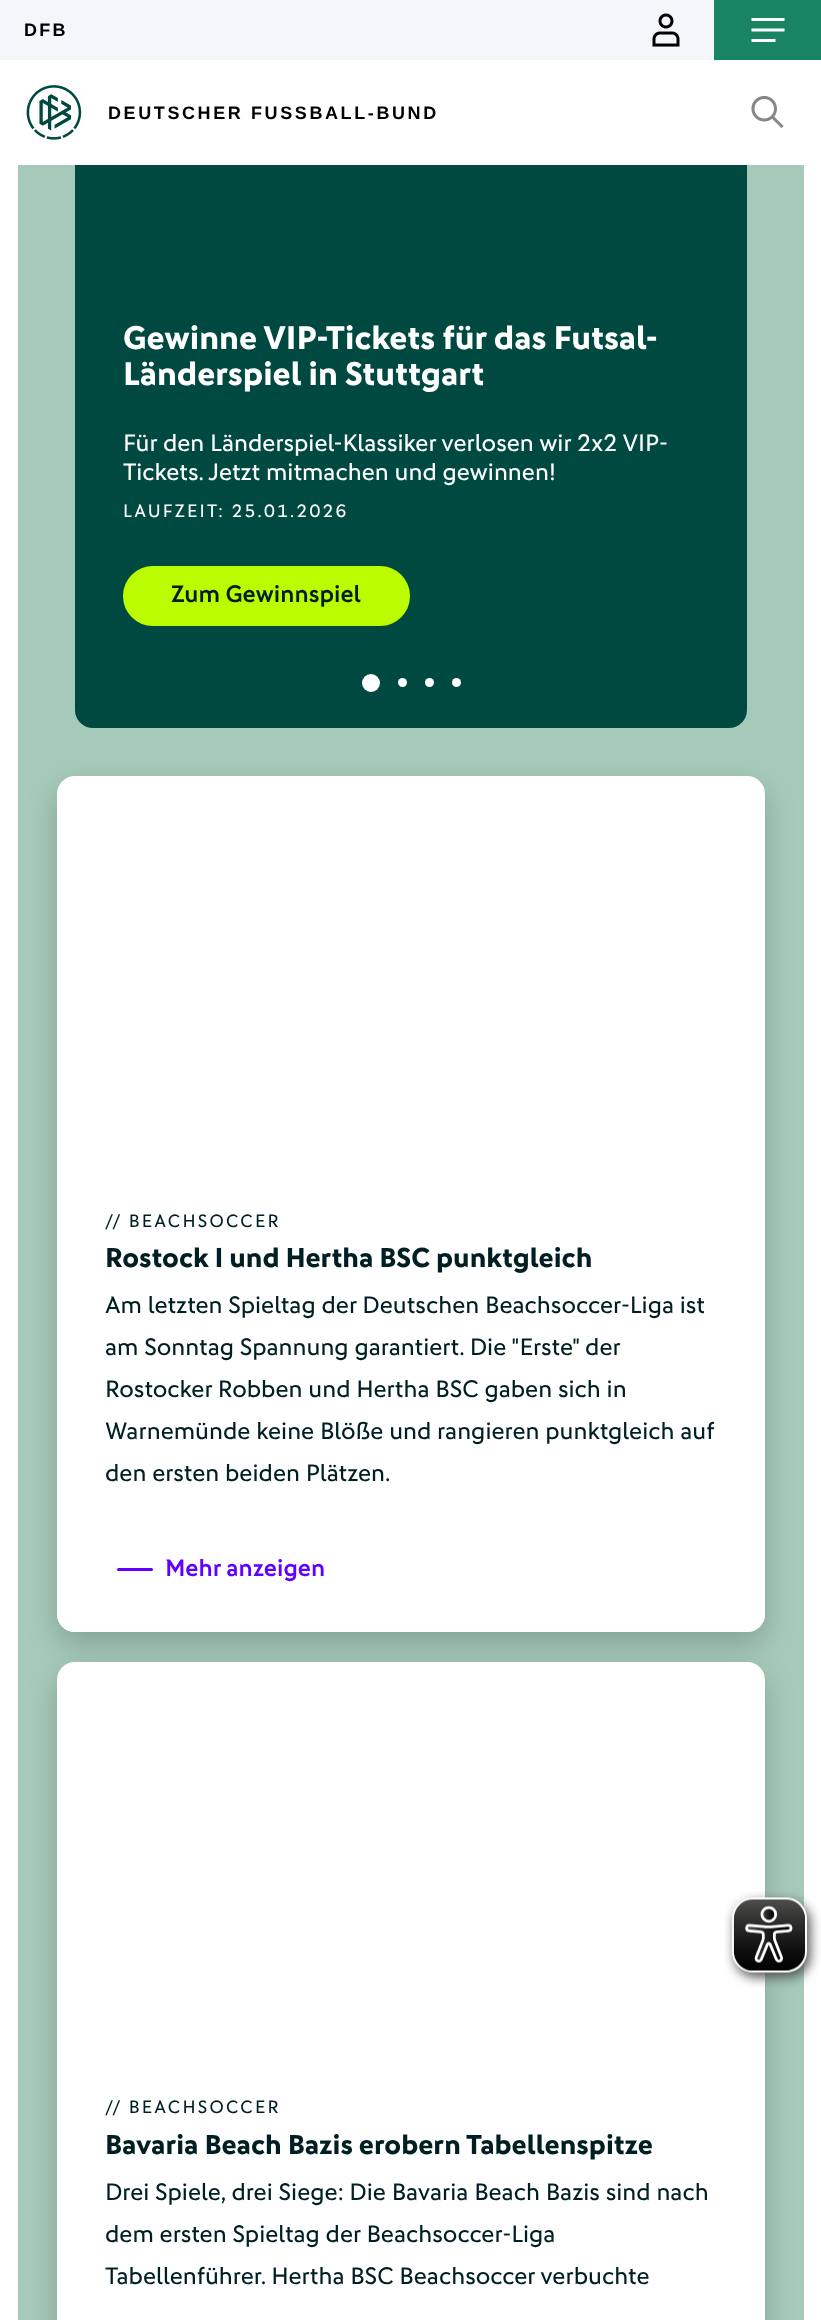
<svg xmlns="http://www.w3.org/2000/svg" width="821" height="2320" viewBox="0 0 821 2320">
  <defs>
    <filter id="blur1" x="-50%" y="-200%" width="200%" height="500%"><feGaussianBlur stdDeviation="15"/></filter>
  </defs>
  <rect width="100%" height="100%" fill="#ffffff"/>
  <rect x="18" y="165" width="786" height="2155" fill="#a6caba"/>
  <rect x="75" y="-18" width="672" height="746" rx="18" fill="#004941"/>
  <rect x="0" y="0" width="714" height="60" fill="#f5f6fa"/>
  <text x="24" y="36" font-family="Liberation Sans" font-size="18" font-weight="bold" letter-spacing="2.25" fill="#000000">DFB</text>
  <image x="652" y="13" width="28" height="34" href="img1.png"/>
  <rect x="714" y="0" width="107" height="60" fill="#188461"/>
  <path d="M751.5 18V21H784.5V18ZM751.5 31.5H784.5V28.5H751.5ZM751.5 42H775.5V39H751.5Z" fill="#ffffff" fill-rule="evenodd"/>
  <rect x="75" y="60" width="672" height="105" fill="#ffffff"/>
  <image x="26" y="85" width="56" height="55" href="img2.png"/>
  <text x="108" y="119" font-family="Liberation Sans" font-size="18" font-weight="bold" letter-spacing="2.6" fill="#000000">DEUTSCHER FUSSBALL-BUND</text>
  <image x="751" y="95" width="33" height="33" href="img3.png"/>
  <text x="123" y="349" font-family="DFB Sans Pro" font-size="33" font-weight="600" fill="#ffffff">Gewinne VIP-Tickets für das Futsal-</text>
  <text x="123" y="385" font-family="DFB Sans Pro" font-size="33" font-weight="600" fill="#ffffff">Länderspiel in Stuttgart</text>
  <text x="123" y="451" font-family="DFB Sans Pro" font-size="24" fill="#ffffff">Für den Länderspiel-Klassiker verlosen wir 2x2 VIP-</text>
  <text x="123" y="480" font-family="DFB Sans Pro" font-size="24" fill="#ffffff">Tickets. Jetzt mitmachen und gewinnen!</text>
  <text x="123" y="517" font-family="DFB Sans Pro" font-size="18" letter-spacing="2.25" fill="#ffffff">LAUFZEIT: 25.01.2026</text>
  <rect x="124.5" y="567.5" width="284" height="57" rx="28.5" fill="#bbfd00" stroke="#bbfd00" stroke-width="3"/>
  <text x="171" y="602" font-family="DFB Sans Pro" font-size="24" font-weight="500" fill="#001f23">Zum Gewinnspiel</text>
  <circle cx="371" cy="683" r="9" fill="#ffffff"/>
  <circle cx="402.5" cy="682.5" r="4.5" fill="#ffffff"/>
  <circle cx="429.5" cy="682.5" r="4.5" fill="#ffffff"/>
  <circle cx="456.5" cy="682.5" r="4.5" fill="#ffffff"/>
  <rect x="57" y="788" width="708" height="856" rx="18" fill="#000000" fill-opacity="0.2" filter="url(#blur1)"/>
  <rect x="57" y="776" width="708" height="856" rx="18" fill="#ffffff"/>
  <text x="105" y="1227" font-family="DFB Sans Pro" font-size="18" letter-spacing="2.25" fill="#001f23">// BEACHSOCCER</text>
  <text x="105" y="1267" font-family="DFB Sans Pro" font-size="27.6" font-weight="600" fill="#001f23">Rostock I und Hertha BSC punktgleich</text>
  <text x="105" y="1313" font-family="DFB Sans Pro" font-size="24" fill="#001f23">Am letzten Spieltag der Deutschen Beachsoccer-Liga ist</text>
  <text x="105" y="1355" font-family="DFB Sans Pro" font-size="24" fill="#001f23">am Sonntag Spannung garantiert. Die "Erste" der</text>
  <text x="105" y="1397" font-family="DFB Sans Pro" font-size="24" fill="#001f23">Rostocker Robben und Hertha BSC gaben sich in</text>
  <text x="105" y="1439" font-family="DFB Sans Pro" font-size="24" fill="#001f23">Warnemünde keine Blöße und rangieren punktgleich auf</text>
  <text x="105" y="1481" font-family="DFB Sans Pro" font-size="24" fill="#001f23">den ersten beiden Plätzen.</text>
  <path d="M57 1544H765V1614C765 1624 757 1632 747 1632H75C65 1632 57 1624 57 1614Z" fill="#ffffff"/>
  <rect x="117" y="1568" width="36" height="3" rx="1.5" fill="#6100ff"/>
  <text x="165" y="1576" font-family="DFB Sans Pro" font-size="24" font-weight="500" fill="#6100ff">Mehr anzeigen</text>
  <rect x="57" y="1674" width="708" height="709" rx="18" fill="#000000" fill-opacity="0.2" filter="url(#blur1)"/>
  <rect x="57" y="1662" width="708" height="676" rx="18" fill="#ffffff"/>
  <text x="105" y="2113" font-family="DFB Sans Pro" font-size="18" letter-spacing="2.25" fill="#001f23">// BEACHSOCCER</text>
  <text x="105" y="2154" font-family="DFB Sans Pro" font-size="27.6" font-weight="600" fill="#001f23">Bavaria Beach Bazis erobern Tabellenspitze</text>
  <text x="105" y="2200" font-family="DFB Sans Pro" font-size="24" fill="#001f23">Drei Spiele, drei Siege: Die Bavaria Beach Bazis sind nach</text>
  <text x="105" y="2242" font-family="DFB Sans Pro" font-size="24" fill="#001f23">dem ersten Spieltag der Beachsoccer-Liga</text>
  <text x="105" y="2284" font-family="DFB Sans Pro" font-size="24" fill="#001f23">Tabellenführer. Hertha BSC Beachsoccer verbuchte</text>
  <image x="724" y="1891" width="97" height="97" href="img4.png"/>
</svg>
